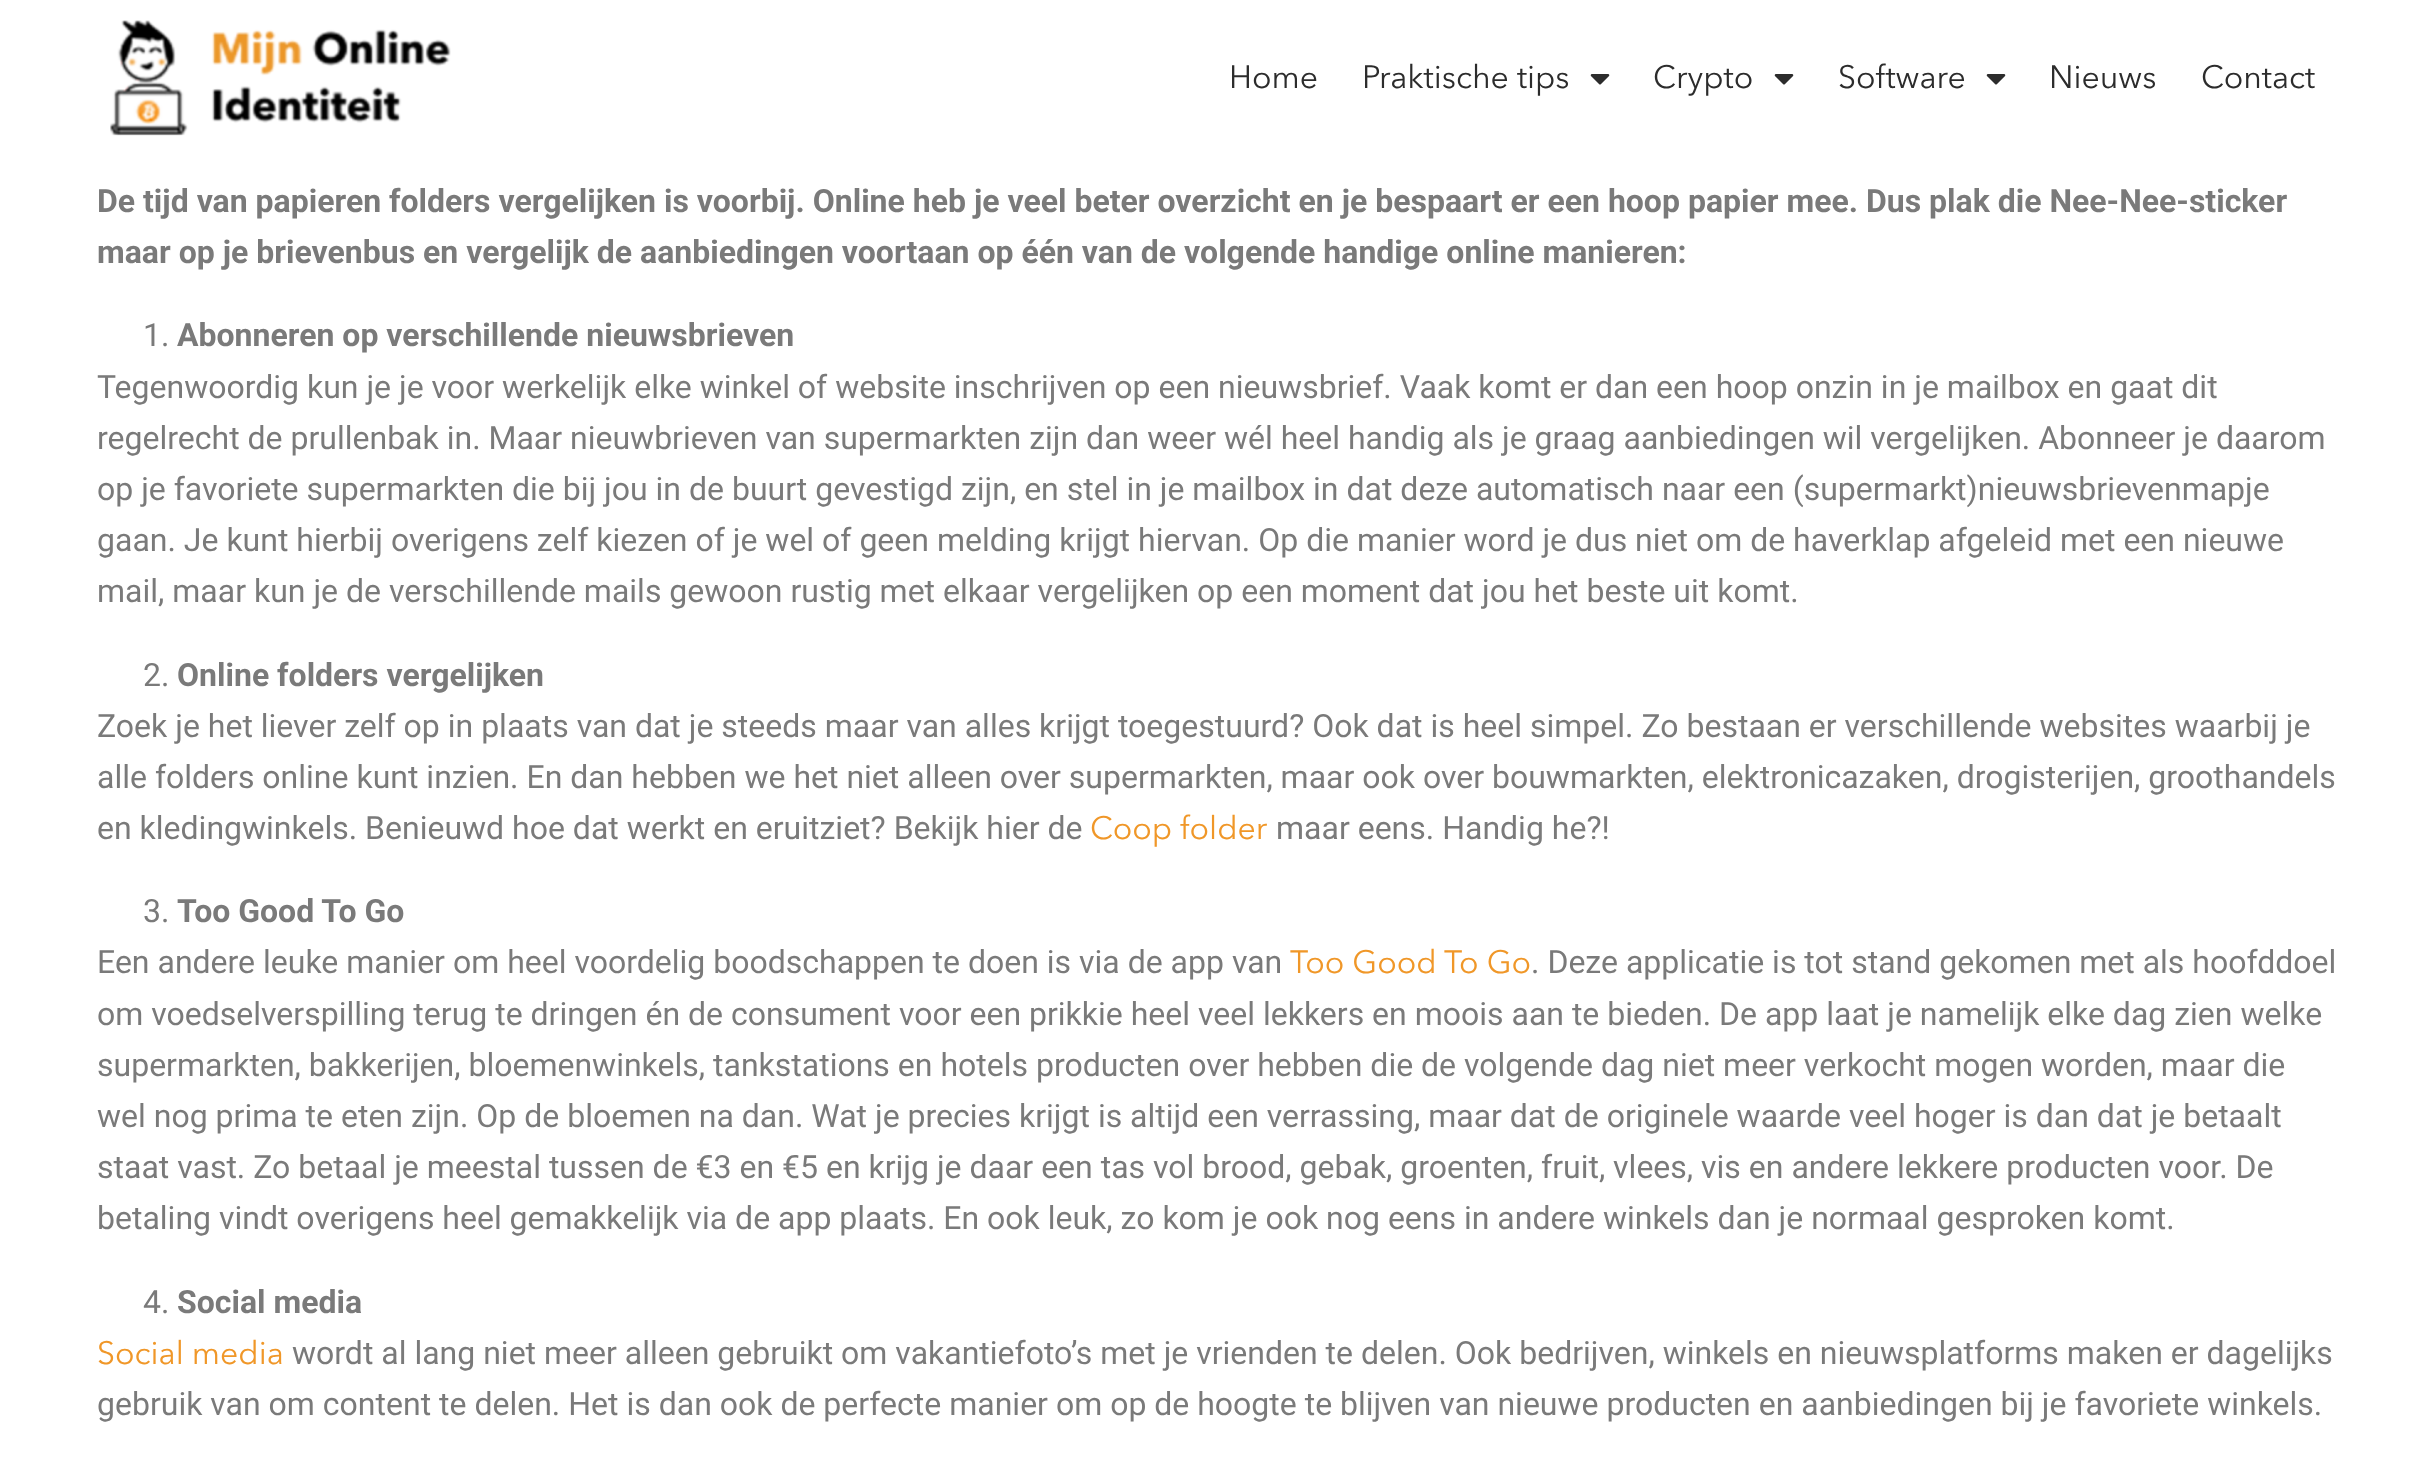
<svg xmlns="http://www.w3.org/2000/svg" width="2434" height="1470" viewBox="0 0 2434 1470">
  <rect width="100%" height="100%" fill="#ffffff"/>
  <image x="110" y="20" width="341" height="116" href="img1.png"/>
  <text x="1229" y="88" font-family="Avenir Next" font-size="32" fill="#2c2c2c">Home</text>
  <text x="1362" y="88" font-family="Avenir Next" font-size="32" fill="#2c2c2c">Praktische tips</text>
  <image x="1590" y="74" width="20" height="11" href="img2.png"/>
  <text x="1653" y="88" font-family="Avenir Next" font-size="32" fill="#2c2c2c">Crypto</text>
  <image x="1774" y="74" width="20" height="11" href="img2.png"/>
  <text x="1838" y="88" font-family="Avenir Next" font-size="32" fill="#2c2c2c">Software</text>
  <image x="1986" y="74" width="20" height="11" href="img2.png"/>
  <text x="2049" y="88" font-family="Avenir Next" font-size="32" fill="#2c2c2c">Nieuws</text>
  <text x="2201" y="88" font-family="Avenir Next" font-size="32" fill="#2c2c2c">Contact</text>
  <text x="97" y="212" font-family="Roboto" font-size="32" font-weight="bold" fill="#7a7a7a">De tijd van papieren folders vergelijken is voorbij. Online heb je veel beter overzicht en je bespaart er een hoop papier mee. Dus plak die Nee-Nee-sticker</text>
  <text x="97" y="263" font-family="Roboto" font-size="32" font-weight="bold" fill="#7a7a7a">maar op je brievenbus en vergelijk de aanbiedingen voortaan op één van de volgende handige online manieren:</text>
  <text x="143" y="346" font-family="Roboto" font-size="32" fill="#7a7a7a">1.</text>
  <text x="177" y="346" font-family="Roboto" font-size="32" font-weight="bold" fill="#7a7a7a">Abonneren op verschillende nieuwsbrieven</text>
  <text x="97" y="398" font-family="Roboto" font-size="32" fill="#7a7a7a">Tegenwoordig kun je je voor werkelijk elke winkel of website inschrijven op een nieuwsbrief. Vaak komt er dan een hoop onzin in je mailbox en gaat dit</text>
  <text x="97" y="449" font-family="Roboto" font-size="32" fill="#7a7a7a">regelrecht de prullenbak in. Maar nieuwbrieven van supermarkten zijn dan weer wél heel handig als je graag aanbiedingen wil vergelijken. Abonneer je daarom</text>
  <text x="97" y="500" font-family="Roboto" font-size="32" fill="#7a7a7a">op je favoriete supermarkten die bij jou in de buurt gevestigd zijn, en stel in je mailbox in dat deze automatisch naar een (supermarkt)nieuwsbrievenmapje</text>
  <text x="97" y="551" font-family="Roboto" font-size="32" fill="#7a7a7a">gaan. Je kunt hierbij overigens zelf kiezen of je wel of geen melding krijgt hiervan. Op die manier word je dus niet om de haverklap afgeleid met een nieuwe</text>
  <text x="97" y="602" font-family="Roboto" font-size="32" fill="#7a7a7a">mail, maar kun je de verschillende mails gewoon rustig met elkaar vergelijken op een moment dat jou het beste uit komt.</text>
  <text x="143" y="686" font-family="Roboto" font-size="32" fill="#7a7a7a">2.</text>
  <text x="177" y="686" font-family="Roboto" font-size="32" font-weight="bold" fill="#7a7a7a">Online folders vergelijken</text>
  <text x="97" y="737" font-family="Roboto" font-size="32" fill="#7a7a7a">Zoek je het liever zelf op in plaats van dat je steeds maar van alles krijgt toegestuurd? Ook dat is heel simpel. Zo bestaan er verschillende websites waarbij je</text>
  <text x="97" y="788" font-family="Roboto" font-size="32" fill="#7a7a7a">alle folders online kunt inzien. En dan hebben we het niet alleen over supermarkten, maar ook over bouwmarkten, elektronicazaken, drogisterijen, groothandels</text>
  <text x="97" y="839" font-family="Roboto" font-size="32" fill="#7a7a7a">en kledingwinkels. Benieuwd hoe dat werkt en eruitziet? Bekijk hier de</text>
  <text x="1090" y="839" font-family="Avenir Next" font-size="32" fill="#f09728">Coop folder</text>
  <text x="1276" y="839" font-family="Roboto" font-size="32" fill="#7a7a7a">maar eens. Handig he?!</text>
  <text x="143" y="922" font-family="Roboto" font-size="32" fill="#7a7a7a">3.</text>
  <text x="177" y="922" font-family="Roboto" font-size="32" font-weight="bold" fill="#7a7a7a">Too Good To Go</text>
  <text x="97" y="973" font-family="Roboto" font-size="32" fill="#7a7a7a">Een andere leuke manier om heel voordelig boodschappen te doen is via de app van</text>
  <text x="1290" y="973" font-family="Avenir Next" font-size="32" fill="#f09728">Too Good To Go</text>
  <text x="1531" y="973" font-family="Roboto" font-size="32" fill="#7a7a7a">. Deze applicatie is tot stand gekomen met als hoofddoel</text>
  <text x="97" y="1025" font-family="Roboto" font-size="32" fill="#7a7a7a">om voedselverspilling terug te dringen én de consument voor een prikkie heel veel lekkers en moois aan te bieden. De app laat je namelijk elke dag zien welke</text>
  <text x="97" y="1076" font-family="Roboto" font-size="32" fill="#7a7a7a">supermarkten, bakkerijen, bloemenwinkels, tankstations en hotels producten over hebben die de volgende dag niet meer verkocht mogen worden, maar die</text>
  <text x="97" y="1127" font-family="Roboto" font-size="32" fill="#7a7a7a">wel nog prima te eten zijn. Op de bloemen na dan. Wat je precies krijgt is altijd een verrassing, maar dat de originele waarde veel hoger is dan dat je betaalt</text>
  <text x="97" y="1178" font-family="Roboto" font-size="32" fill="#7a7a7a">staat vast. Zo betaal je meestal tussen de €3 en €5 en krijg je daar een tas vol brood, gebak, groenten, fruit, vlees, vis en andere lekkere producten voor. De</text>
  <text x="97" y="1229" font-family="Roboto" font-size="32" fill="#7a7a7a">betaling vindt overigens heel gemakkelijk via de app plaats. En ook leuk, zo kom je ook nog eens in andere winkels dan je normaal gesproken komt.</text>
  <text x="143" y="1313" font-family="Roboto" font-size="32" fill="#7a7a7a">4.</text>
  <text x="177" y="1313" font-family="Roboto" font-size="32" font-weight="bold" fill="#7a7a7a">Social media</text>
  <text x="97" y="1364" font-family="Avenir Next" font-size="32" fill="#f09728">Social media</text>
  <text x="292" y="1364" font-family="Roboto" font-size="32" fill="#7a7a7a">wordt al lang niet meer alleen gebruikt om vakantiefoto’s met je vrienden te delen. Ook bedrijven, winkels en nieuwsplatforms maken er dagelijks</text>
  <text x="97" y="1415" font-family="Roboto" font-size="32" fill="#7a7a7a">gebruik van om content te delen. Het is dan ook de perfecte manier om op de hoogte te blijven van nieuwe producten en aanbiedingen bij je favoriete winkels.</text>
</svg>
